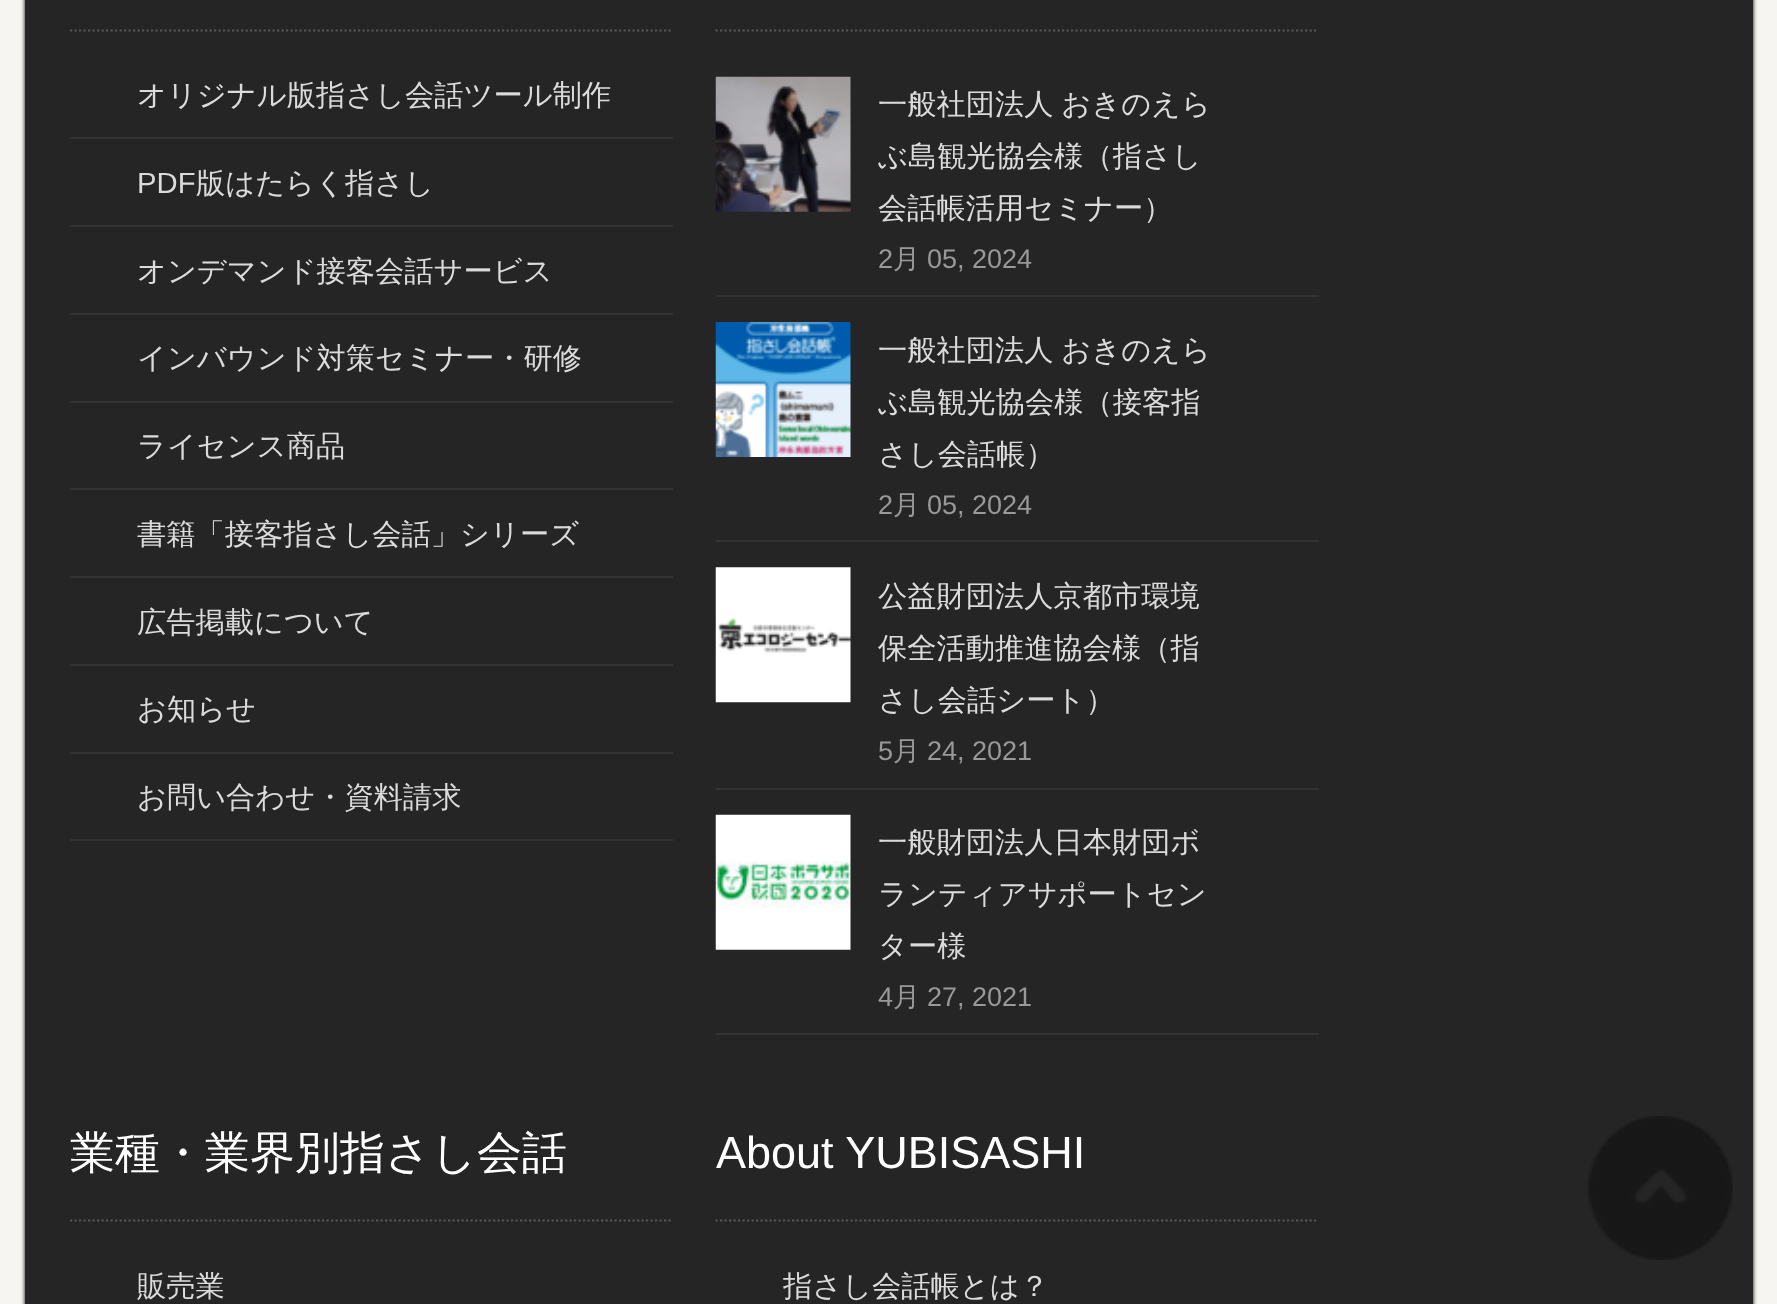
<svg xmlns="http://www.w3.org/2000/svg" width="1777" height="1304" viewBox="0 0 1777 1304">
  <defs>
    <filter id="blur1" x="-50%" y="-200%" width="200%" height="500%"><feGaussianBlur stdDeviation="2"/></filter>
  </defs>
  <rect width="100%" height="100%" fill="#f6f5f2"/>
  <rect x="25" y="-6" width="1728" height="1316" fill="#000000" filter="url(#blur1)"/>
  <rect x="25" y="0" width="1728" height="1304" fill="#252525"/>
  <path d="M70 30.5H673" fill="none" stroke="#5a5656" stroke-width="2.2" stroke-dasharray="2.25 2.25"/>
  <rect x="70" y="137" width="603" height="2" fill="#353232"/>
  <text x="137" y="105" font-family="WenQuanYi Zen Hei" font-size="29.25" font-weight="500" fill="#dbdbdb">オリジナル版指さし会話ツール制作</text>
  <rect x="70" y="225" width="603" height="2" fill="#353232"/>
  <text x="137" y="193" font-family="Liberation Sans" font-size="29.25" fill="#dbdbdb">PDF</text>
  <text x="196" y="193" font-family="WenQuanYi Zen Hei" font-size="29.25" font-weight="500" fill="#dbdbdb">版はたらく指さし</text>
  <rect x="70" y="313" width="603" height="2" fill="#353232"/>
  <text x="137" y="281" font-family="WenQuanYi Zen Hei" font-size="29.25" font-weight="500" fill="#dbdbdb">オンデマンド接客会話サービス</text>
  <rect x="70" y="401" width="603" height="2" fill="#353232"/>
  <text x="137" y="368" font-family="WenQuanYi Zen Hei" font-size="29.25" font-weight="500" fill="#dbdbdb">インバウンド対策セミナー・研修</text>
  <rect x="70" y="488" width="603" height="2" fill="#353232"/>
  <text x="137" y="456" font-family="WenQuanYi Zen Hei" font-size="29.25" font-weight="500" fill="#dbdbdb">ライセンス商品</text>
  <rect x="70" y="576" width="603" height="2" fill="#353232"/>
  <text x="137" y="544" font-family="WenQuanYi Zen Hei" font-size="29.25" font-weight="500" fill="#dbdbdb">書籍「接客指さし会話」シリーズ</text>
  <rect x="70" y="664" width="603" height="2" fill="#353232"/>
  <text x="137" y="632" font-family="WenQuanYi Zen Hei" font-size="29.25" font-weight="500" fill="#dbdbdb">広告掲載について</text>
  <rect x="70" y="752" width="603" height="2" fill="#353232"/>
  <text x="137" y="719" font-family="WenQuanYi Zen Hei" font-size="29.25" font-weight="500" fill="#dbdbdb">お知らせ</text>
  <rect x="70" y="839" width="603" height="2" fill="#353232"/>
  <text x="137" y="807" font-family="WenQuanYi Zen Hei" font-size="29.25" font-weight="500" fill="#dbdbdb">お問い合わせ・資料請求</text>
  <path d="M715.5 30.5H1318.5" fill="none" stroke="#5a5656" stroke-width="2.2" stroke-dasharray="2.25 2.25"/>
  <rect x="716" y="295" width="603" height="2" fill="#353232"/>
  <image x="715" y="76" width="136" height="136" href="img1.png"/>
  <text x="878" y="114" word-spacing="-1" font-family="WenQuanYi Zen Hei" font-size="29.25" font-weight="500" fill="#dbdbdb">一般社団法人 おきのえら</text>
  <text x="878" y="166" font-family="WenQuanYi Zen Hei" font-size="29.25" font-weight="500" fill="#dbdbdb">ぶ島観光協会様（指さし</text>
  <text x="878" y="218" font-family="WenQuanYi Zen Hei" font-size="29.25" font-weight="500" fill="#dbdbdb">会話帳活用セミナー）</text>
  <text x="878" y="268" font-family="Liberation Sans" font-size="27" fill="#999999">2</text>
  <text x="893" y="268" font-family="WenQuanYi Zen Hei" font-size="27" font-weight="500" fill="#999999">月</text>
  <text x="927" y="268" font-family="Liberation Sans" font-size="27" fill="#999999">05, 2024</text>
  <rect x="716" y="540" width="603" height="2" fill="#353232"/>
  <image x="715" y="322" width="136" height="135" href="img2.png"/>
  <text x="878" y="360" word-spacing="-1" font-family="WenQuanYi Zen Hei" font-size="29.25" font-weight="500" fill="#dbdbdb">一般社団法人 おきのえら</text>
  <text x="878" y="412" font-family="WenQuanYi Zen Hei" font-size="29.25" font-weight="500" fill="#dbdbdb">ぶ島観光協会様（接客指</text>
  <text x="878" y="464" font-family="WenQuanYi Zen Hei" font-size="29.25" font-weight="500" fill="#dbdbdb">さし会話帳）</text>
  <text x="878" y="514" font-family="Liberation Sans" font-size="27" fill="#999999">2</text>
  <text x="893" y="514" font-family="WenQuanYi Zen Hei" font-size="27" font-weight="500" fill="#999999">月</text>
  <text x="927" y="514" font-family="Liberation Sans" font-size="27" fill="#999999">05, 2024</text>
  <rect x="716" y="788" width="603" height="2" fill="#353232"/>
  <image x="715" y="567" width="136" height="136" href="img3.png"/>
  <text x="878" y="606" font-family="WenQuanYi Zen Hei" font-size="29.25" font-weight="500" fill="#dbdbdb">公益財団法人京都市環境</text>
  <text x="878" y="658" font-family="WenQuanYi Zen Hei" font-size="29.25" font-weight="500" fill="#dbdbdb">保全活動推進協会様（指</text>
  <text x="878" y="710" font-family="WenQuanYi Zen Hei" font-size="29.25" font-weight="500" fill="#dbdbdb">さし会話シート）</text>
  <text x="878" y="760" font-family="Liberation Sans" font-size="27" fill="#999999">5</text>
  <text x="893" y="760" font-family="WenQuanYi Zen Hei" font-size="27" font-weight="500" fill="#999999">月</text>
  <text x="927" y="760" font-family="Liberation Sans" font-size="27" fill="#999999">24, 2021</text>
  <rect x="716" y="1033" width="603" height="2" fill="#353232"/>
  <image x="715" y="814" width="136" height="136" href="img4.png"/>
  <text x="878" y="852" font-family="WenQuanYi Zen Hei" font-size="29.25" font-weight="500" fill="#dbdbdb">一般財団法人日本財団ボ</text>
  <text x="878" y="904" font-family="WenQuanYi Zen Hei" font-size="29.25" font-weight="500" fill="#dbdbdb">ランティアサポートセン</text>
  <text x="878" y="956" font-family="WenQuanYi Zen Hei" font-size="29.25" font-weight="500" fill="#dbdbdb">ター様</text>
  <text x="878" y="1006" font-family="Liberation Sans" font-size="27" fill="#999999">4</text>
  <text x="893" y="1006" font-family="WenQuanYi Zen Hei" font-size="27" font-weight="500" fill="#999999">月</text>
  <text x="927" y="1006" font-family="Liberation Sans" font-size="27" fill="#999999">27, 2021</text>
  <path d="M70 1220.5H673" fill="none" stroke="#5a5656" stroke-width="2.2" stroke-dasharray="2.25 2.25"/>
  <text x="70" y="1168" font-family="WenQuanYi Zen Hei" font-size="45" font-weight="500" fill="#ffffff">業種・業界別指さし会話</text>
  <text x="137" y="1296" font-family="WenQuanYi Zen Hei" font-size="29.25" font-weight="500" fill="#dbdbdb">販売業</text>
  <path d="M715.5 1220.5H1318.5" fill="none" stroke="#5a5656" stroke-width="2.2" stroke-dasharray="2.25 2.25"/>
  <text x="716" y="1168" font-family="Liberation Sans" font-size="45" fill="#ffffff">About YUBISASHI</text>
  <text x="783" y="1296" font-family="WenQuanYi Zen Hei" font-size="29.25" font-weight="500" fill="#dbdbdb">指さし会話帳とは？</text>
  <image x="1588" y="1116" width="145" height="144" href="img5.png"/>
</svg>
